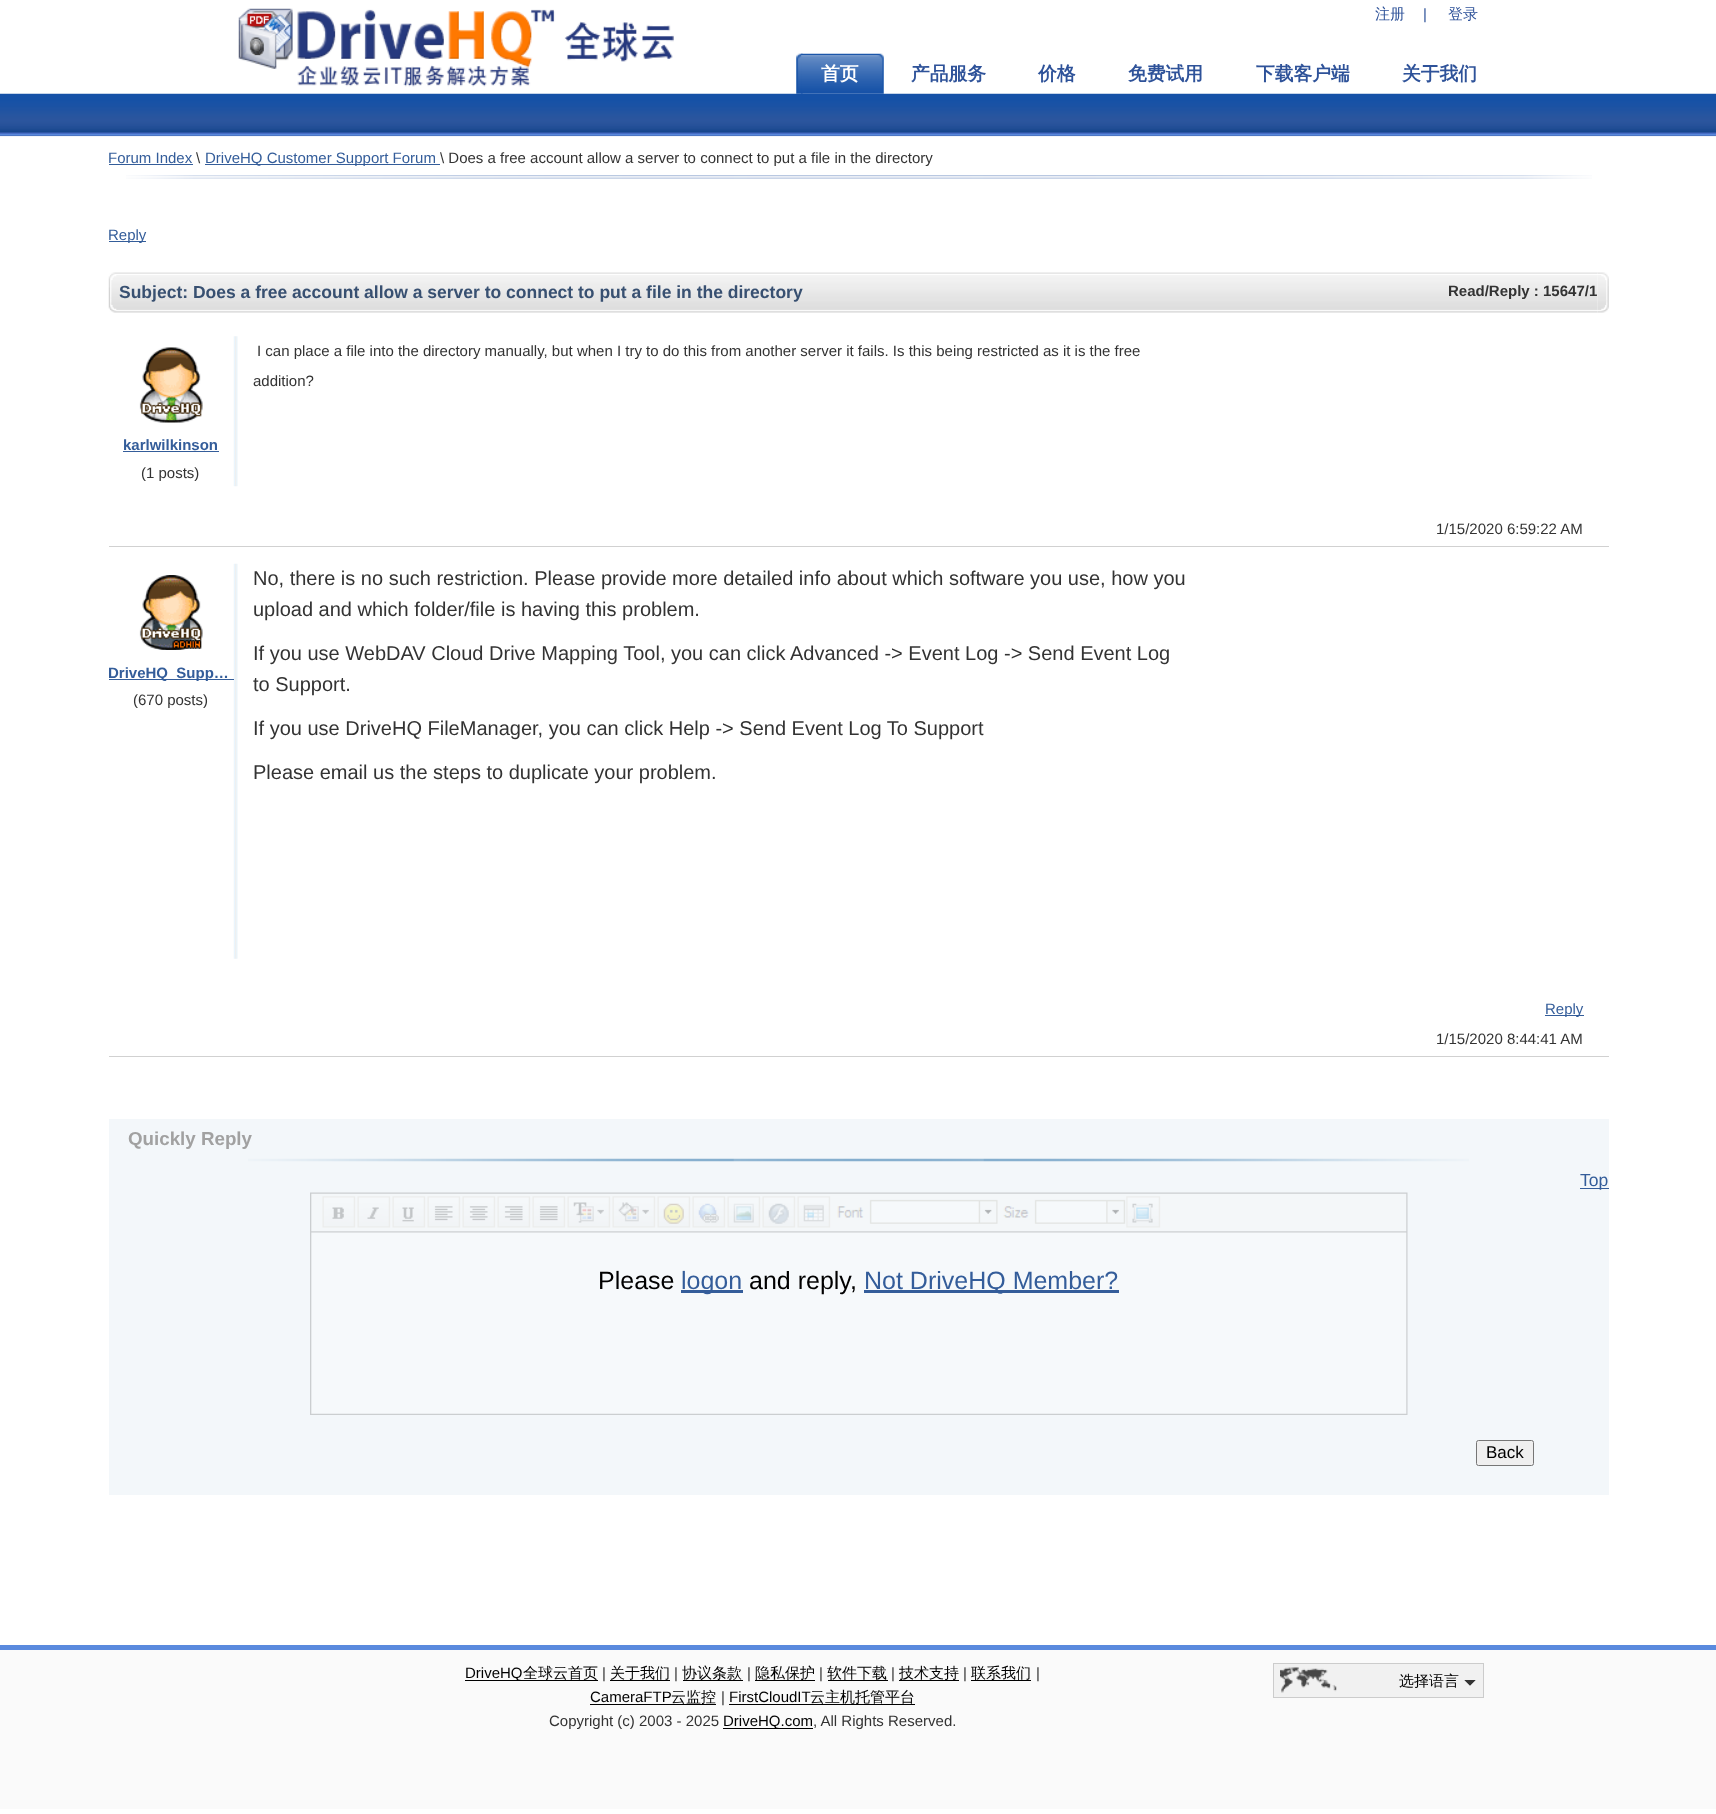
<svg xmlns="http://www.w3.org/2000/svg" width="1716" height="1814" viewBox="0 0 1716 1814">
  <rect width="100%" height="100%" fill="#ffffff"/>
  <image x="0" y="93" width="1716" height="44" href="img1.png"/>
  <image x="238" y="8" width="436" height="79" href="img2.png"/>
  <text x="1375" y="19" font-family="WenQuanYi Zen Hei" font-size="15" font-weight="500" fill="#2e5299">注册</text>
  <text x="1423" y="19" font-family="Liberation Sans" font-size="15" fill="#2e5299">|</text>
  <text x="1448" y="19" font-family="WenQuanYi Zen Hei" font-size="15" font-weight="500" fill="#2e5299">登录</text>
  <image x="796" y="53" width="7" height="41" href="img3.png"/>
  <image x="801" y="53" width="83" height="41" href="img4.png"/>
  <text x="821" y="80" font-family="WenQuanYi Zen Hei" font-size="18.75" font-weight="bold" fill="#ffffff">首页</text>
  <text x="911" y="80" font-family="WenQuanYi Zen Hei" font-size="18.75" font-weight="bold" fill="#2e5299">产品服务</text>
  <text x="1038" y="80" font-family="WenQuanYi Zen Hei" font-size="18.75" font-weight="bold" fill="#2e5299">价格</text>
  <text x="1128" y="80" font-family="WenQuanYi Zen Hei" font-size="18.75" font-weight="bold" fill="#2e5299">免费试用</text>
  <text x="1256" y="80" font-family="WenQuanYi Zen Hei" font-size="18.75" font-weight="bold" fill="#2e5299">下载客户端</text>
  <text x="1402" y="80" font-family="WenQuanYi Zen Hei" font-size="18.75" font-weight="bold" fill="#2e5299">关于我们</text>
  <image x="126" y="175" width="1466" height="4" href="img5.png"/>
  <text x="108" y="163" font-family="Liberation Sans" font-size="15" fill="#345d9a">Forum Index</text>
  <rect x="109" y="164" width="84" height="1" fill="#345d9a"/>
  <text x="196" y="163" font-family="Liberation Sans" font-size="15" fill="#333333">\</text>
  <rect x="205" y="164" width="235" height="1" fill="#345d9a"/>
  <text x="205" y="163" font-family="Liberation Sans" font-size="15" fill="#345d9a">DriveHQ Customer Support Forum</text>
  <text x="440" y="163" font-family="Liberation Sans" font-size="15" fill="#333333">\ Does a free account allow a server to connect to put a file in the directory</text>
  <rect x="109" y="241" width="37" height="1" fill="#345d9a"/>
  <text x="108" y="240" font-family="Liberation Sans" font-size="15" fill="#345d9a">Reply</text>
  <image x="108" y="272" width="12" height="41" href="img6.png"/>
  <image x="120" y="272" width="1478" height="41" href="img7.png"/>
  <text x="119" y="298" font-family="Liberation Sans" font-size="17.5" font-weight="bold" fill="#385071">Subject: Does a free account allow a server to connect to put a file in the directory</text>
  <text x="1448" y="296" font-family="Liberation Sans" font-size="15" font-weight="bold" fill="#333333">Read/Reply : 15647/1</text>
  <image x="1597" y="272" width="12" height="41" href="img8.png"/>
  <image x="233" y="336" width="5" height="151" href="img9.png"/>
  <text x="257" y="356" font-family="Liberation Sans" font-size="15" fill="#333333">I can place a file into the directory manually, but when I try to do this from another server it fails. Is this being restricted as it is the free</text>
  <text x="253" y="386" font-family="Liberation Sans" font-size="15" fill="#333333">addition?</text>
  <image x="139" y="347" width="64" height="76" href="img10.png"/>
  <text x="123" y="450" font-family="Liberation Sans" font-size="15" font-weight="bold" fill="#345d9a">karlwilkinson</text>
  <rect x="123" y="451" width="96" height="1" fill="#345d9a"/>
  <text x="141" y="478" font-family="Liberation Sans" font-size="15" fill="#333333">(1 posts)</text>
  <text x="1436" y="534" font-family="Liberation Sans" font-size="15" fill="#333333">1/15/2020 6:59:22 AM</text>
  <rect x="109" y="546" width="1500" height="1" fill="#d1d1d1"/>
  <image x="139" y="575" width="64" height="75" href="img11.png"/>
  <image x="233" y="563" width="5" height="396" href="img12.png"/>
  <rect x="109" y="679" width="125" height="1" fill="#345d9a"/>
  <text x="108" y="678" font-family="Liberation Sans" font-size="15" font-weight="bold" fill="#345d9a">DriveHQ_Supp…</text>
  <text x="133" y="705" font-family="Liberation Sans" font-size="15" fill="#333333">(670 posts)</text>
  <text x="253" y="585" font-family="Liberation Sans" font-size="20" fill="#333333">No, there is no such restriction. Please provide more detailed info about which software you use, how you</text>
  <text x="253" y="616" font-family="Liberation Sans" font-size="20" fill="#333333">upload and which folder/file is having this problem.</text>
  <text x="253" y="660" font-family="Liberation Sans" font-size="20" fill="#333333">If you use WebDAV Cloud Drive Mapping Tool, you can click Advanced -&gt; Event Log -&gt; Send Event Log</text>
  <text x="253" y="691" font-family="Liberation Sans" font-size="20" fill="#333333">to Support.</text>
  <text x="253" y="735" font-family="Liberation Sans" font-size="20" fill="#333333">If you use DriveHQ FileManager, you can click Help -&gt; Send Event Log To Support</text>
  <text x="253" y="779" font-family="Liberation Sans" font-size="20" fill="#333333">Please email us the steps to duplicate your problem.</text>
  <rect x="1545" y="1015" width="39" height="1" fill="#345d9a"/>
  <text x="1545" y="1014" font-family="Liberation Sans" font-size="15" fill="#345d9a">Reply</text>
  <text x="1436" y="1044" font-family="Liberation Sans" font-size="15" fill="#333333">1/15/2020 8:44:41 AM</text>
  <rect x="109" y="1056" width="1500" height="1" fill="#d1d1d1"/>
  <rect x="109" y="1119" width="1500" height="376" fill="#f3f7fa"/>
  <image x="248" y="1158" width="1221" height="4" href="img13.png"/>
  <text x="128" y="1145" font-family="Liberation Sans" font-size="18.75" font-weight="bold" fill="#a1a1a1">Quickly Reply</text>
  <rect x="1580" y="1188" width="29" height="1" fill="#345d9a"/>
  <text x="1580" y="1186" font-family="Liberation Sans" font-size="17.5" fill="#345d9a">Top</text>
  <image x="310" y="1192" width="1098" height="223" href="img14.png"/>
  <text x="598" y="1289" font-family="Liberation Sans" font-size="25" fill="#000000">Please</text>
  <rect x="681" y="1290" width="62" height="3" fill="#345d9a"/>
  <text x="681" y="1289" font-family="Liberation Sans" font-size="25" fill="#345d9a">logon</text>
  <text x="749" y="1289" font-family="Liberation Sans" font-size="25" fill="#000000">and reply,</text>
  <rect x="864" y="1290" width="255" height="3" fill="#345d9a"/>
  <text x="864" y="1289" font-family="Liberation Sans" font-size="25" fill="#345d9a">Not DriveHQ Member?</text>
  <rect x="1476.5" y="1440.5" width="57" height="25" rx="2" fill="#efefef" stroke="#767676"/>
  <text x="1486" y="1458" font-family="Liberation Sans" font-size="17" fill="#000000">Back</text>
  <rect x="0" y="1650" width="1716" height="159" fill="#fafafa"/>
  <rect x="0" y="1645" width="1716" height="5" fill="#5a8ade"/>
  <rect x="465" y="1680" width="133" height="1" fill="#000000"/>
  <text x="465" y="1678" font-family="Liberation Sans" font-size="15" fill="#000000">DriveHQ</text>
  <text x="523" y="1678" font-family="WenQuanYi Zen Hei" font-size="15" font-weight="500" fill="#000000">全球云首页</text>
  <text x="602" y="1678" font-family="Liberation Sans" font-size="15" fill="#333333">|</text>
  <text x="610" y="1678" font-family="WenQuanYi Zen Hei" font-size="15" font-weight="500" fill="#000000">关于我们</text>
  <rect x="610" y="1680" width="60" height="1" fill="#000000"/>
  <text x="674" y="1678" font-family="Liberation Sans" font-size="15" fill="#333333">|</text>
  <rect x="683" y="1680" width="60" height="1" fill="#000000"/>
  <text x="682" y="1678" font-family="WenQuanYi Zen Hei" font-size="15" font-weight="500" fill="#000000">协议条款</text>
  <text x="747" y="1678" font-family="Liberation Sans" font-size="15" fill="#333333">|</text>
  <rect x="755" y="1680" width="60" height="1" fill="#000000"/>
  <text x="755" y="1678" font-family="WenQuanYi Zen Hei" font-size="15" font-weight="500" fill="#000000">隐私保护</text>
  <text x="819" y="1678" font-family="Liberation Sans" font-size="15" fill="#333333">|</text>
  <text x="827" y="1678" font-family="WenQuanYi Zen Hei" font-size="15" font-weight="500" fill="#000000">软件下载</text>
  <rect x="828" y="1680" width="60" height="1" fill="#000000"/>
  <text x="891" y="1678" font-family="Liberation Sans" font-size="15" fill="#333333">|</text>
  <rect x="899" y="1680" width="60" height="1" fill="#000000"/>
  <text x="899" y="1678" font-family="WenQuanYi Zen Hei" font-size="15" font-weight="500" fill="#000000">技术支持</text>
  <text x="963" y="1678" font-family="Liberation Sans" font-size="15" fill="#333333">|</text>
  <text x="971" y="1678" font-family="WenQuanYi Zen Hei" font-size="15" font-weight="500" fill="#000000">联系我们</text>
  <rect x="971" y="1680" width="60" height="1" fill="#000000"/>
  <text x="1036" y="1678" font-family="Liberation Sans" font-size="15" fill="#333333">|</text>
  <text x="590" y="1702" font-family="Liberation Sans" font-size="15" fill="#000000">CameraFTP</text>
  <rect x="590" y="1704" width="126" height="1" fill="#000000"/>
  <text x="671" y="1702" font-family="WenQuanYi Zen Hei" font-size="15" font-weight="500" fill="#000000">云监控</text>
  <text x="721" y="1702" font-family="Liberation Sans" font-size="15" fill="#333333">|</text>
  <text x="729" y="1702" font-family="Liberation Sans" font-size="15" fill="#000000">FirstCloudIT</text>
  <rect x="729" y="1704" width="186" height="1" fill="#000000"/>
  <text x="810" y="1702" font-family="WenQuanYi Zen Hei" font-size="15" font-weight="500" fill="#000000">云主机托管平台</text>
  <text x="549" y="1726" font-family="Liberation Sans" font-size="15" fill="#333333">Copyright (c) 2003 - 2025</text>
  <rect x="723" y="1728" width="90" height="1" fill="#000000"/>
  <text x="723" y="1726" font-family="Liberation Sans" font-size="15" fill="#000000">DriveHQ.com</text>
  <text x="813" y="1726" font-family="Liberation Sans" font-size="15" fill="#333333">, All Rights Reserved.</text>
  <rect x="1273.5" y="1663.5" width="210" height="34" fill="#f1f1f1" stroke="#cccccc"/>
  <image x="1280" y="1667" width="57" height="26" href="img15.png"/>
  <text x="1399" y="1686" font-family="WenQuanYi Zen Hei" font-size="15" font-weight="500" fill="#000000">选择语言</text>
  <path d="M1464 1680H1476L1470 1686Z" fill="#333333"/>
  <path d="M1476 1680V1686H1470ZM1464 1686V1680L1470 1686Z" fill="#f1f1f1"/>
</svg>
